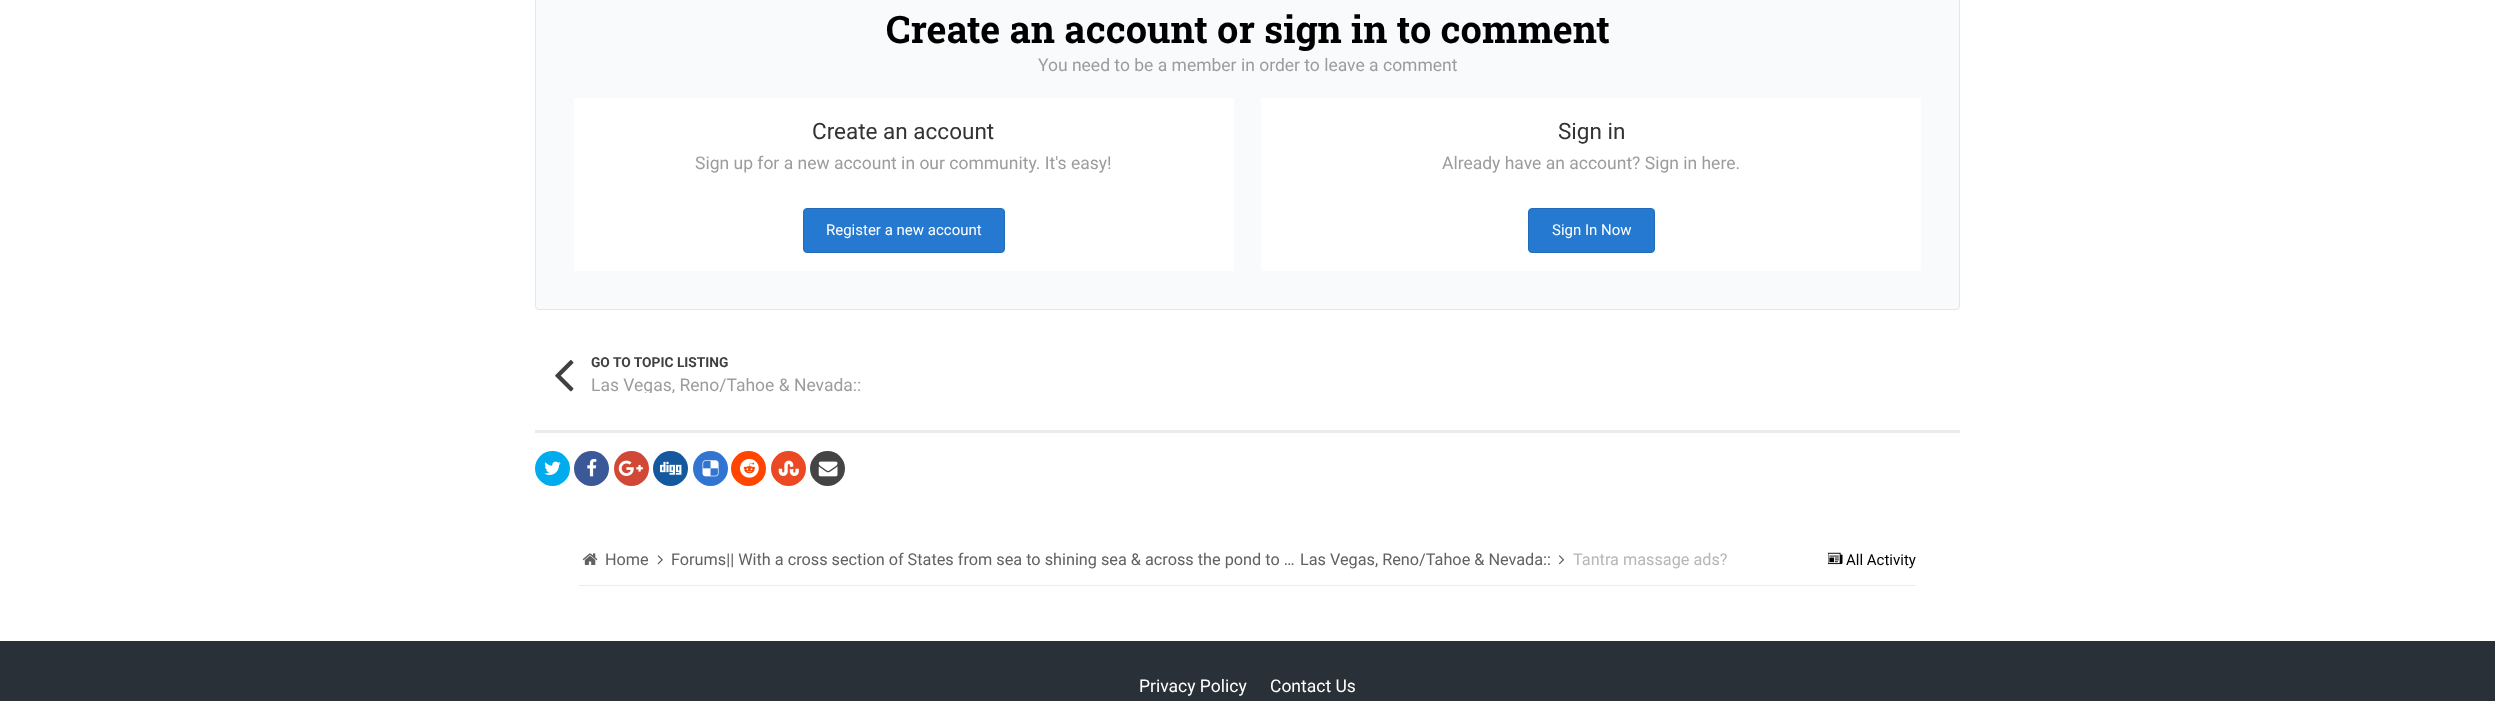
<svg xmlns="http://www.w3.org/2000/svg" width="2495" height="701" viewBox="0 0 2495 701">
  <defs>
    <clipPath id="clip1"><rect x="591" y="370" width="623" height="23"/></clipPath>
  </defs>
  <rect width="100%" height="100%" fill="#ffffff"/>
  <rect x="535.5" y="-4.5" width="1424" height="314" rx="3.5" fill="#f9fafb" stroke="#e0e7ef"/>
  <text x="886" y="43" font-family="Roboto Slab" font-size="37.9" font-weight="bold" fill="#000000">Create an account or sign in to comment</text>
  <text x="1038" y="71" font-family="Roboto" font-size="17.5" fill="#9c9c9c">You need to be a member in order to leave a comment</text>
  <rect x="574" y="98" width="660" height="173" fill="#ffffff"/>
  <text x="812" y="139" font-family="Roboto" font-size="22.5" fill="#333333">Create an account</text>
  <text x="695" y="169" font-family="Roboto" font-size="17.5" fill="#9c9c9c">Sign up for a new account in our community. It's easy!</text>
  <rect x="803.5" y="208.5" width="201" height="44" rx="3.5" fill="#2579d0" stroke="#216cba"/>
  <text x="826" y="235" font-family="Roboto" font-size="15" fill="#ffffff">Register a new account</text>
  <rect x="1261" y="98" width="660" height="173" fill="#ffffff"/>
  <text x="1558" y="139" font-family="Roboto" font-size="22.5" fill="#333333">Sign in</text>
  <text x="1442" y="169" font-family="Roboto" font-size="17.5" fill="#9c9c9c">Already have an account? Sign in here.</text>
  <rect x="1528.5" y="208.5" width="126" height="44" rx="3.5" fill="#2579d0" stroke="#216cba"/>
  <text x="1552" y="235" font-family="Roboto" font-size="15" fill="#ffffff">Sign In Now</text>
  <image x="555" y="360" width="19" height="32" href="img1.png"/>
  <text x="591" y="367" font-family="Roboto" font-size="13.75" font-weight="bold" fill="#404040">GO TO TOPIC LISTING</text>
  <g clip-path="url(#clip1)">
    <text x="591" y="391" font-family="Roboto" font-size="17.5" fill="#9c9c9c">Las Vegas, Reno/Tahoe &amp; Nevada::</text>
  </g>
  <rect x="535" y="430" width="1425" height="3" fill="#ebebeb"/>
  <circle cx="552.5" cy="468.5" r="17.5" fill="#00aced"/>
  <image x="544" y="461" width="17" height="14" href="img2.png"/>
  <circle cx="591.5" cy="468.5" r="17.5" fill="#3b5998"/>
  <image x="587" y="458" width="10" height="19" href="img3.png"/>
  <circle cx="631.5" cy="468.5" r="17.5" fill="#d14836"/>
  <image x="618" y="460" width="25" height="16" href="img4.png"/>
  <circle cx="670.5" cy="468.5" r="17.5" fill="#14589e"/>
  <image x="660" y="461" width="22" height="14" href="img5.png"/>
  <circle cx="710.5" cy="468.5" r="17.5" fill="#3274d1"/>
  <image x="702" y="460" width="17" height="17" href="img6.png"/>
  <circle cx="748.5" cy="468.5" r="17.5" fill="#ff4500"/>
  <image x="740" y="458" width="19" height="20" href="img7.png"/>
  <circle cx="788.5" cy="468.5" r="17.5" fill="#eb4924"/>
  <image x="778" y="460" width="21" height="16" href="img8.png"/>
  <circle cx="827.5" cy="468.5" r="17.5" fill="#444444"/>
  <image x="818" y="461" width="20" height="16" href="img9.png"/>
  <rect x="579" y="585" width="1337" height="1" fill="#ececec"/>
  <image x="582" y="553" width="16" height="12" href="img10.png"/>
  <text x="605" y="565" font-family="Roboto" font-size="16.25" fill="#616161">Home</text>
  <image x="657" y="555" width="6" height="10" href="img11.png"/>
  <text x="671" y="565" font-family="Roboto" font-size="16.25" fill="#616161">Forums|| With a cross section of States from sea to shining sea &amp; across the pond to …</text>
  <text x="1300" y="565" font-family="Roboto" font-size="16.25" fill="#616161">Las Vegas, Reno/Tahoe &amp; Nevada::</text>
  <image x="1558" y="555" width="7" height="10" href="img12.png"/>
  <text x="1573" y="565" font-family="Roboto" font-size="16.25" fill="#b6b6b6">Tantra massage ads?</text>
  <image x="1828" y="552" width="15" height="13" href="img13.png"/>
  <text x="1846" y="565" font-family="Roboto" font-size="15" fill="#000000">All Activity</text>
  <rect x="0" y="641" width="2495" height="60" fill="#293037"/>
  <text x="1139" y="692" font-family="Roboto" font-size="17.5" fill="#ffffff">Privacy Policy</text>
  <text x="1270" y="692" font-family="Roboto" font-size="17.5" fill="#ffffff">Contact Us</text>
</svg>
